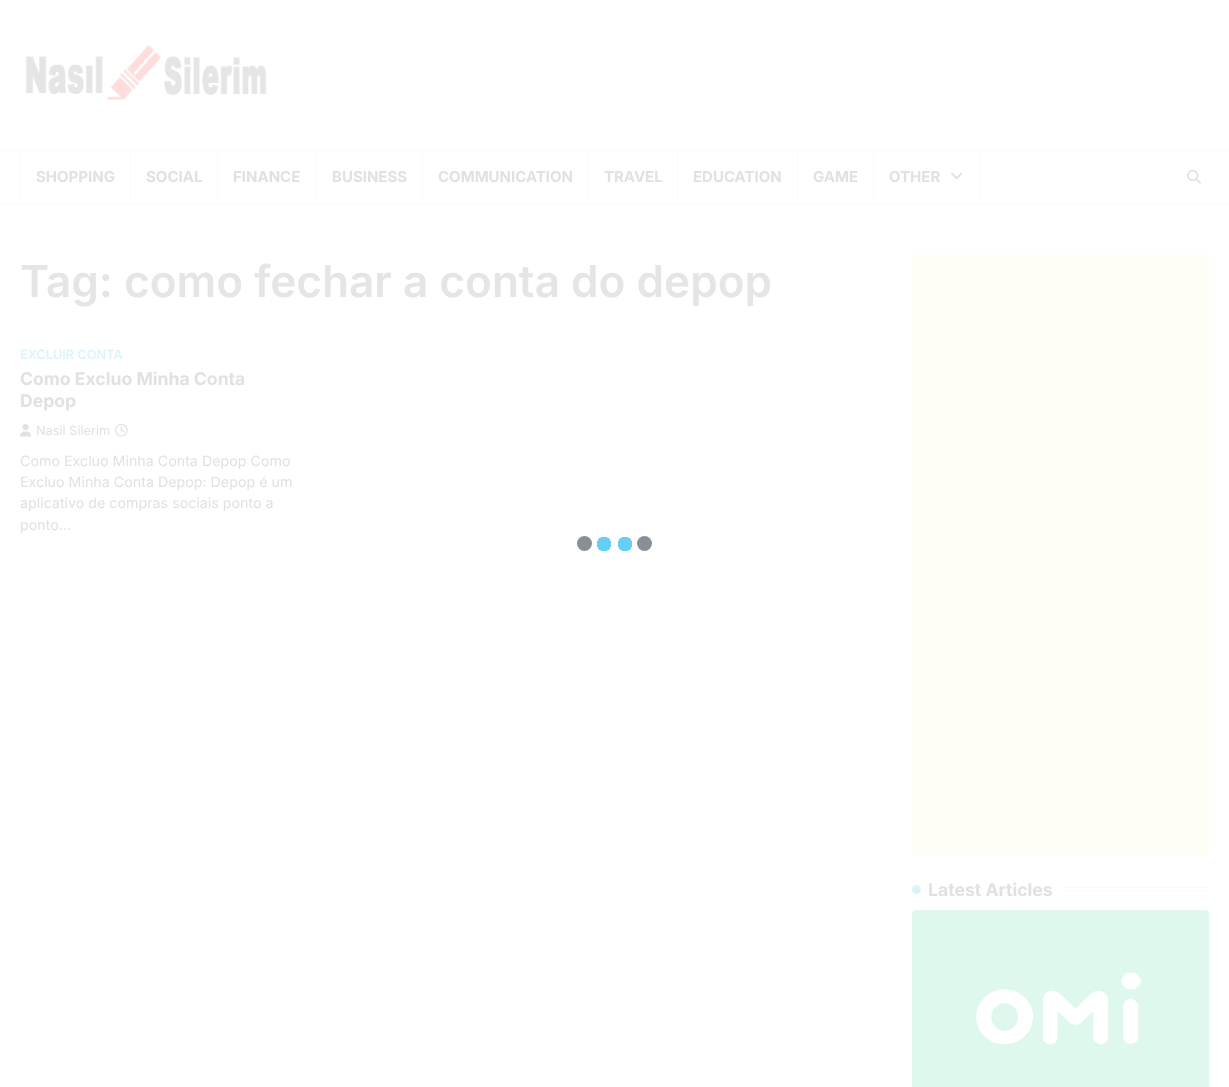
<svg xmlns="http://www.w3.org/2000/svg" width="1229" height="1087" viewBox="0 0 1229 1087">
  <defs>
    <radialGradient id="g1" gradientUnits="userSpaceOnUse" cx="625" cy="544" r="7.5"><stop offset="0.95" stop-color="#66d0f4"/><stop offset="1" stop-color="#ffffff"/></radialGradient>
    <radialGradient id="g2" gradientUnits="userSpaceOnUse" cx="604" cy="544" r="7.5"><stop offset="0.95" stop-color="#66d0f4"/><stop offset="1" stop-color="#ffffff"/></radialGradient>
  </defs>
  <rect width="100%" height="100%" fill="#ffffff"/>
  <image x="25" y="45" width="242" height="56" href="img1.png"/>
  <rect x="0" y="150" width="1229" height="1" fill="#fbfbfb"/>
  <rect x="0" y="204" width="1229" height="1" fill="#fbfbfb"/>
  <rect x="20" y="151" width="1" height="53" fill="#fbfbfb"/>
  <text x="36" y="182" font-family="Inter" font-size="15" font-weight="bold" fill="#e1e1e1">SHOPPING</text>
  <rect x="130" y="151" width="1" height="53" fill="#fbfbfb"/>
  <text x="146" y="182" font-family="Inter" font-size="15" font-weight="bold" fill="#e1e1e1">SOCIAL</text>
  <rect x="217" y="151" width="1" height="53" fill="#fbfbfb"/>
  <text x="233" y="182" font-family="Inter" font-size="15" font-weight="bold" fill="#e1e1e1">FINANCE</text>
  <rect x="316" y="151" width="1" height="53" fill="#fbfbfb"/>
  <text x="332" y="182" font-family="Inter" font-size="15" font-weight="bold" fill="#e1e1e1">BUSINESS</text>
  <rect x="422" y="151" width="1" height="53" fill="#fbfbfb"/>
  <text x="438" y="182" font-family="Inter" font-size="15" font-weight="bold" fill="#e1e1e1">COMMUNICATION</text>
  <rect x="588" y="151" width="1" height="53" fill="#fbfbfb"/>
  <text x="604" y="182" font-family="Inter" font-size="15" font-weight="bold" fill="#e1e1e1">TRAVEL</text>
  <rect x="677" y="151" width="1" height="53" fill="#fbfbfb"/>
  <text x="693" y="182" font-family="Inter" font-size="15" font-weight="bold" fill="#e1e1e1">EDUCATION</text>
  <rect x="797" y="151" width="1" height="53" fill="#fbfbfb"/>
  <text x="813" y="182" font-family="Inter" font-size="15" font-weight="bold" fill="#e1e1e1">GAME</text>
  <rect x="979" y="151" width="1" height="53" fill="#fbfbfb"/>
  <rect x="873" y="151" width="1" height="53" fill="#fbfbfb"/>
  <text x="889" y="182" font-family="Inter" font-size="15" font-weight="bold" fill="#e1e1e1">OTHER</text>
  <image x="951" y="172" width="12" height="8" href="img2.png"/>
  <image x="1187" y="169" width="14" height="15" href="img3.png"/>
  <text x="20" y="297" font-family="Inter" font-size="44.1" font-weight="600" fill="#e4e5e7">Tag: como fechar a conta do depop</text>
  <text x="20" y="359" font-family="Inter" font-size="12.75" font-weight="600" fill="#dbf4fc">EXCLUIR CONTA</text>
  <text x="20" y="385" font-family="Inter" font-size="17.6" font-weight="bold" fill="#e1e1e1">Como Excluo Minha Conta</text>
  <text x="20" y="407" font-family="Inter" font-size="17.6" font-weight="bold" fill="#e1e1e1">Depop</text>
  <image x="20" y="423" width="11" height="14" href="img4.png"/>
  <text x="36" y="435" font-family="Inter" font-size="12.75" fill="#e1e1e1">Nasil Silerim</text>
  <image x="115" y="423" width="13" height="14" href="img5.png"/>
  <text x="20" y="466" font-family="Inter" font-size="14.25" fill="#e1e1e1">Como Excluo Minha Conta Depop Como</text>
  <text x="20" y="487" font-family="Inter" font-size="14.25" fill="#e1e1e1">Excluo Minha Conta Depop: Depop é um</text>
  <text x="20" y="508" font-family="Inter" font-size="14.25" fill="#e1e1e1">aplicativo de compras sociais ponto a</text>
  <text x="20" y="530" font-family="Inter" font-size="14.25" fill="#e1e1e1">ponto…</text>
  <rect x="912" y="255" width="297" height="600" fill="#fffef6"/>
  <circle cx="916.5" cy="889.5" r="4.5" fill="#dbf4fc"/>
  <text x="928" y="896" font-family="Inter" font-size="17.6" font-weight="bold" fill="#e1e1e1">Latest Articles</text>
  <rect x="1062" y="887" width="147" height="1" fill="#fbfbfb"/>
  <rect x="1062" y="890" width="147" height="1" fill="#fbfbfb"/>
  <image x="912" y="910" width="297" height="177" href="img6.png"/>
  <rect x="618" y="537" width="14" height="14" fill="url(#g1)"/>
  <rect x="597" y="537" width="14" height="14" fill="url(#g2)"/>
  <circle cx="584.5" cy="543.5" r="7.5" fill="#8a8f97"/>
  <circle cx="644.5" cy="543.5" r="7.5" fill="#8a8f97"/>
</svg>
